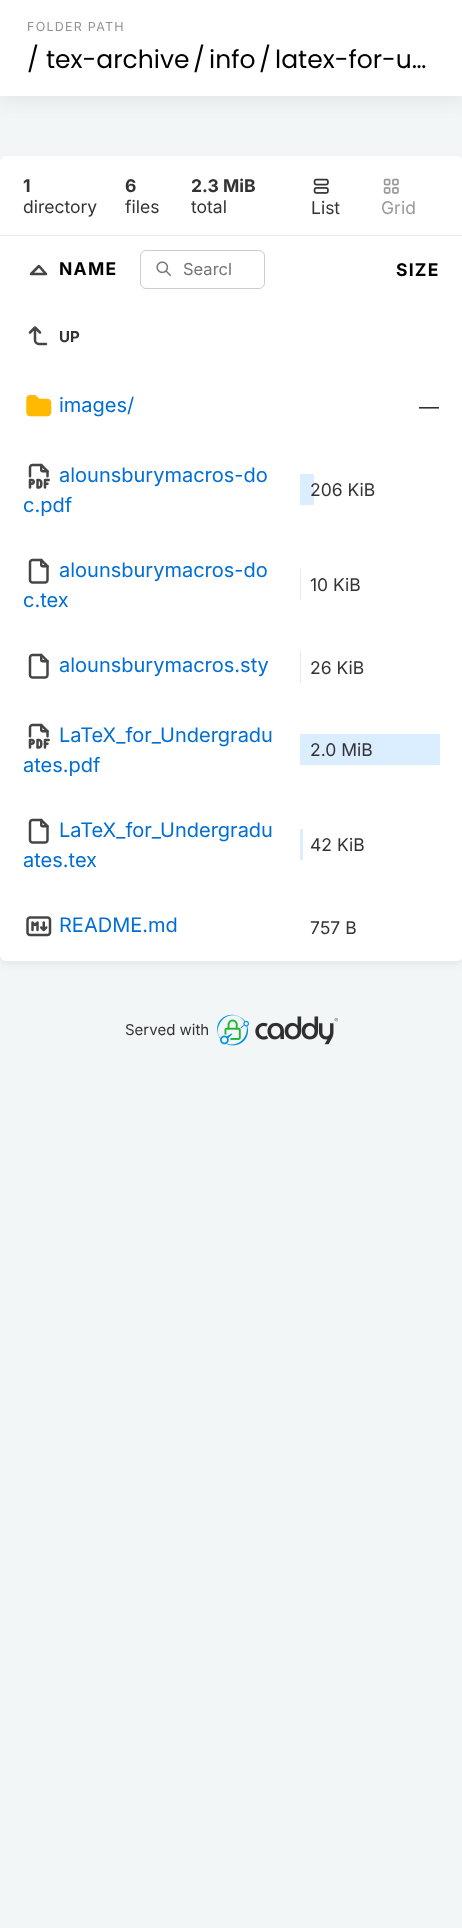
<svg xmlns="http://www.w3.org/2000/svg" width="462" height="1928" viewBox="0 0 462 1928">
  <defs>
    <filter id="blur1" x="-50%" y="-200%" width="200%" height="500%"><feGaussianBlur stdDeviation="12.5"/></filter>
    <filter id="blur2" x="-50%" y="-200%" width="200%" height="500%"><feGaussianBlur stdDeviation="3"/></filter>
    <clipPath id="clip1"><rect x="183" y="259" width="48" height="20"/></clipPath>
  </defs>
  <rect width="100%" height="100%" fill="#f3f6f7"/>
  <rect x="0" y="0" width="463" height="96" fill="#000000" fill-opacity="0.1" filter="url(#blur1)"/>
  <rect x="0" y="0" width="462" height="96" fill="#ffffff"/>
  <text x="27" y="31" font-family="Inter" font-size="12.5" letter-spacing="1.25" fill="#939393">FOLDER PATH</text>
  <text x="27" y="68" font-family="Poppins" font-size="25" fill="#000000">/</text>
  <text x="46" y="68" font-family="Poppins" font-size="25" fill="#000000">tex-archive</text>
  <text x="193" y="68" font-family="Poppins" font-size="25" fill="#000000">/</text>
  <text x="209" y="68" font-family="Poppins" font-size="25" fill="#000000">info</text>
  <text x="259" y="68" font-family="Poppins" font-size="25" fill="#000000">/</text>
  <text x="275" y="68" font-family="Poppins" font-size="25" fill="#000000">latex-for-u…</text>
  <rect x="-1" y="158" width="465" height="807" rx="8" fill="#000000" fill-opacity="0.05" filter="url(#blur2)"/>
  <rect x="0" y="156" width="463" height="805" rx="6" fill="#ffffff"/>
  <rect x="0" y="235" width="462" height="1" fill="#e5e9ea"/>
  <text x="23" y="192" font-family="Inter" font-size="17.5" font-weight="bold" fill="#333333">1</text>
  <text x="23" y="213" font-family="Inter" font-size="17.5" fill="#333333">directory</text>
  <text x="125" y="192" font-family="Inter" font-size="17.5" font-weight="bold" fill="#333333">6</text>
  <text x="125" y="213" font-family="Inter" font-size="17.5" fill="#333333">files</text>
  <text x="191" y="192" font-family="Inter" font-size="17.5" font-weight="bold" fill="#333333">2.3 MiB</text>
  <text x="191" y="213" font-family="Inter" font-size="17.5" fill="#333333">total</text>
  <image x="313" y="178" width="16" height="16" href="img1.png"/>
  <text x="311" y="214" font-family="Inter" font-size="17.5" fill="#333333">List</text>
  <image x="383" y="178" width="16" height="16" href="img2.png"/>
  <text x="381" y="214" font-family="Inter" font-size="17.5" fill="#9a9a9a">Grid</text>
  <path d="M46 274L39 266L31 274H46" fill="none" stroke="#454545" stroke-width="2.5" stroke-linecap="round" stroke-linejoin="round"/>
  <text x="59" y="275" font-family="Inter" font-size="17.5" font-weight="bold" letter-spacing="1.25" fill="#000000">NAME</text>
  <image x="156" y="261" width="15" height="15" href="img3.png"/>
  <rect x="140.5" y="250.5" width="124" height="38" rx="5.5" fill="none" stroke="#cccccc"/>
  <g clip-path="url(#clip1)">
    <text x="183" y="275" font-family="Inter" font-size="16.5" fill="#757575">Search</text>
  </g>
  <text x="396" y="276" font-family="Inter" font-size="17.5" font-weight="bold" letter-spacing="1.25" fill="#000000">SIZE</text>
  <path d="M46 344H39C36.5 344 35 342 35 340V327.5L30 332.5M40 332.5L35 327.5" fill="none" stroke="#454545" stroke-width="2.5" stroke-linecap="round" stroke-linejoin="round"/>
  <text x="59" y="342" font-family="Inter" font-size="15" font-weight="bold" fill="#333333">UP</text>
  <image x="26" y="395" width="26" height="22" href="img4.png"/>
  <text x="59" y="412" font-family="Inter" font-size="20" fill="#006ed3">images/</text>
  <text x="419" y="414" font-family="Inter" font-size="20" fill="#333333">—</text>
  <image x="28" y="463" width="22" height="26" href="img5.png"/>
  <text x="59" y="482" font-family="Inter" font-size="20" fill="#006ed3">alounsburymacros-do</text>
  <text x="23" y="512" font-family="Inter" font-size="20" fill="#006ed3">c.pdf</text>
  <rect x="300" y="474" width="14" height="31" fill="#dbeeff"/>
  <text x="310" y="496" font-family="Inter" font-size="17.5" fill="#333333">206 KiB</text>
  <image x="28" y="558" width="21" height="26" href="img6.png"/>
  <text x="59" y="577" font-family="Inter" font-size="20" fill="#006ed3">alounsburymacros-do</text>
  <text x="23" y="607" font-family="Inter" font-size="20" fill="#006ed3">c.tex</text>
  <rect x="300" y="569" width="1" height="31" fill="#dbeeff"/>
  <text x="310" y="591" font-family="Inter" font-size="17.5" fill="#333333">10 KiB</text>
  <image x="28" y="653" width="21" height="26" href="img6.png"/>
  <text x="59" y="672" font-family="Inter" font-size="20" fill="#006ed3">alounsburymacros.sty</text>
  <rect x="300" y="651" width="1" height="32" fill="#dbeeff"/>
  <text x="310" y="674" font-family="Inter" font-size="17.5" fill="#333333">26 KiB</text>
  <image x="28" y="723" width="22" height="26" href="img5.png"/>
  <text x="59" y="742" font-family="Inter" font-size="20" fill="#006ed3">LaTeX_for_Undergradu</text>
  <text x="23" y="772" font-family="Inter" font-size="20" fill="#006ed3">ates.pdf</text>
  <rect x="300" y="734" width="140" height="31" fill="#dbeeff"/>
  <text x="310" y="756" font-family="Inter" font-size="17.5" fill="#333333">2.0 MiB</text>
  <image x="28" y="818" width="21" height="26" href="img6.png"/>
  <text x="59" y="837" font-family="Inter" font-size="20" fill="#006ed3">LaTeX_for_Undergradu</text>
  <text x="23" y="867" font-family="Inter" font-size="20" fill="#006ed3">ates.tex</text>
  <rect x="300" y="829" width="3" height="31" fill="#dbeeff"/>
  <text x="310" y="851" font-family="Inter" font-size="17.5" fill="#333333">42 KiB</text>
  <image x="26" y="916" width="26" height="21" href="img7.png"/>
  <text x="59" y="932" font-family="Inter" font-size="20" fill="#006ed3">README.md</text>
  <text x="310" y="934" font-family="Inter" font-size="17.5" fill="#333333">757 B</text>
  <text x="125" y="1035" font-family="Inter" font-size="15" fill="#333333">Served with</text>
  <image x="217" y="1014" width="121" height="32" href="img8.png"/>
</svg>
